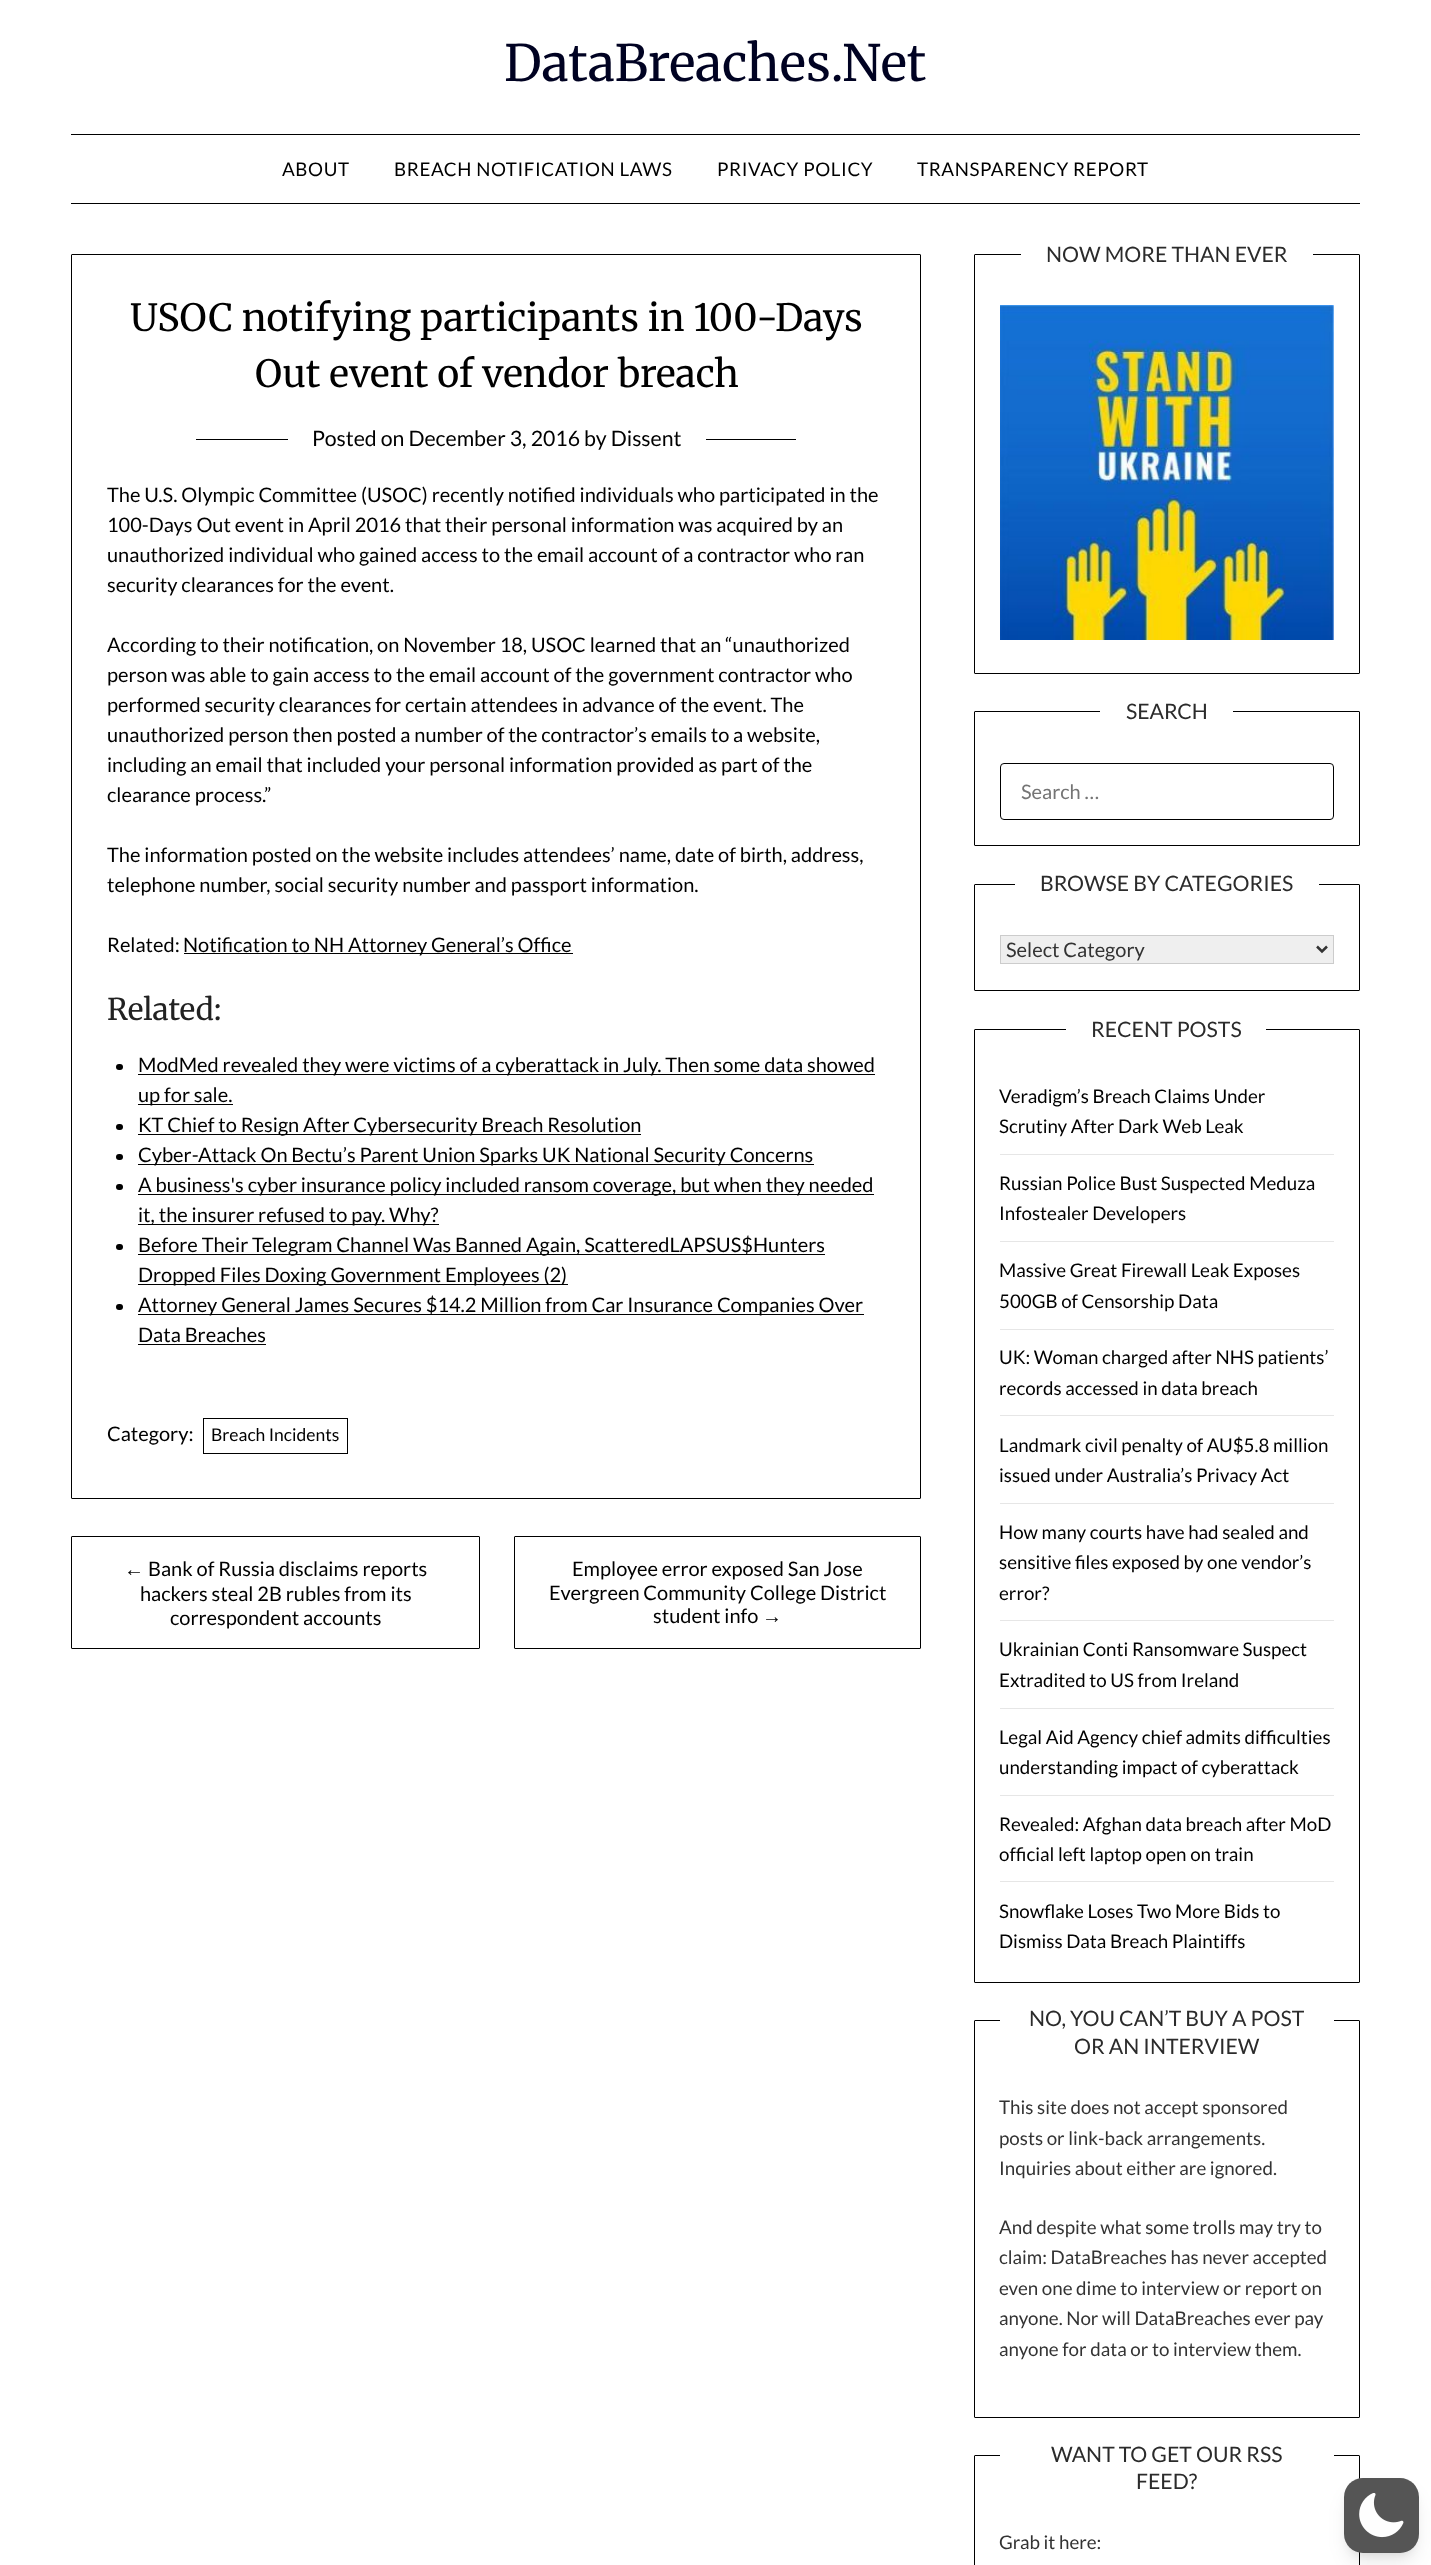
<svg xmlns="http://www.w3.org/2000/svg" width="1431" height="2565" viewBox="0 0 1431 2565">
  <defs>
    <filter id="blur1" x="-50%" y="-200%" width="200%" height="500%"><feGaussianBlur stdDeviation="4"/></filter>
    <filter id="blur2" x="-50%" y="-200%" width="200%" height="500%"><feGaussianBlur stdDeviation="9.5"/></filter>
  </defs>
  <rect width="100%" height="100%" fill="#ffffff"/>
  <text x="504" y="81" font-family="Merriweather" font-size="50" fill="#000222">DataBreaches.Net</text>
  <rect x="71" y="134" width="1289" height="1" fill="#000000"/>
  <rect x="71" y="203" width="1289" height="1" fill="#000000"/>
  <text x="282" y="176" font-family="Lato" font-size="18.75" letter-spacing="0.6" fill="#000000">ABOUT</text>
  <text x="394" y="176" font-family="Lato" font-size="18.75" letter-spacing="0.6" fill="#000000">BREACH NOTIFICATION LAWS</text>
  <text x="717" y="176" font-family="Lato" font-size="18.75" letter-spacing="0.6" fill="#000000">PRIVACY POLICY</text>
  <text x="917" y="176" font-family="Lato" font-size="18.75" letter-spacing="0.6" fill="#000000">TRANSPARENCY REPORT</text>
  <rect x="71.5" y="254.5" width="849" height="1244" rx="0.5" fill="none" stroke="#000000"/>
  <text x="130" y="331" font-family="Merriweather" font-size="37.5" fill="#000000">USOC notifying participants in 100-Days</text>
  <text x="255" y="387" font-family="Merriweather" font-size="37.5" fill="#000000">Out event of vendor breach</text>
  <rect x="196" y="439" width="600" height="1" fill="#000000"/>
  <rect x="288" y="439" width="418" height="1" fill="#ffffff"/>
  <text x="312" y="446" font-family="Lato" font-size="21.25" fill="#000000">Posted on December 3, 2016 by Dissent</text>
  <text x="107" y="502" font-family="Lato" font-size="20" fill="#000000">The U.S. Olympic Committee (USOC) recently notified individuals who participated in the</text>
  <text x="107" y="532" font-family="Lato" font-size="20" fill="#000000">100-Days Out event in April 2016 that their personal information was acquired by an</text>
  <text x="107" y="562" font-family="Lato" font-size="20" fill="#000000">unauthorized individual who gained access to the email account of a contractor who ran</text>
  <text x="107" y="592" font-family="Lato" font-size="20" fill="#000000">security clearances for the event.</text>
  <text x="107" y="652" font-family="Lato" font-size="20" fill="#000000">According to their notification, on November 18, USOC learned that an “unauthorized</text>
  <text x="107" y="682" font-family="Lato" font-size="20" fill="#000000">person was able to gain access to the email account of the government contractor who</text>
  <text x="107" y="712" font-family="Lato" font-size="20" fill="#000000">performed security clearances for certain attendees in advance of the event. The</text>
  <text x="107" y="742" font-family="Lato" font-size="20" fill="#000000">unauthorized person then posted a number of the contractor’s emails to a website,</text>
  <text x="107" y="772" font-family="Lato" font-size="20" fill="#000000">including an email that included your personal information provided as part of the</text>
  <text x="107" y="802" font-family="Lato" font-size="20" fill="#000000">clearance process.”</text>
  <text x="107" y="862" font-family="Lato" font-size="20" fill="#000000">The information posted on the website includes attendees’ name, date of birth, address,</text>
  <text x="107" y="892" font-family="Lato" font-size="20" fill="#000000">telephone number, social security number and passport information.</text>
  <text x="107" y="952" font-family="Lato" font-size="20" fill="#000000">Related:</text>
  <rect x="184" y="953" width="389" height="1" fill="#000000"/>
  <text x="183" y="952" font-family="Lato" font-size="20" fill="#000000">Notification to NH Attorney General’s Office</text>
  <text x="107" y="1020" font-family="Merriweather" font-size="30" fill="#222222">Related:</text>
  <rect x="116" y="1064" width="7" height="6" rx="3" fill="#000000"/>
  <rect x="138" y="1074" width="737" height="1" fill="#000000"/>
  <text x="138" y="1072" font-family="Lato" font-size="20" fill="#000000">ModMed revealed they were victims of a cyberattack in July. Then some data showed</text>
  <rect x="138" y="1104" width="95" height="1" fill="#000000"/>
  <text x="138" y="1102" font-family="Lato" font-size="20" fill="#000000">up for sale.</text>
  <rect x="116" y="1124" width="7" height="6" rx="3" fill="#000000"/>
  <rect x="138" y="1134" width="503" height="1" fill="#000000"/>
  <text x="138" y="1132" font-family="Lato" font-size="20" fill="#000000">KT Chief to Resign After Cybersecurity Breach Resolution</text>
  <rect x="116" y="1154" width="7" height="6" rx="3" fill="#000000"/>
  <rect x="138" y="1164" width="676" height="1" fill="#000000"/>
  <text x="138" y="1162" font-family="Lato" font-size="20" fill="#000000">Cyber-Attack On Bectu’s Parent Union Sparks UK National Security Concerns</text>
  <rect x="116" y="1184" width="7" height="6" rx="3" fill="#000000"/>
  <rect x="138" y="1194" width="736" height="1" fill="#000000"/>
  <text x="138" y="1192" font-family="Lato" font-size="20" fill="#000000">A business's cyber insurance policy included ransom coverage, but when they needed</text>
  <rect x="138" y="1224" width="301" height="1" fill="#000000"/>
  <text x="138" y="1222" font-family="Lato" font-size="20" fill="#000000">it, the insurer refused to pay. Why?</text>
  <rect x="116" y="1244" width="7" height="6" rx="3" fill="#000000"/>
  <rect x="138" y="1254" width="687" height="1" fill="#000000"/>
  <text x="138" y="1252" font-family="Lato" font-size="20" fill="#000000">Before Their Telegram Channel Was Banned Again, ScatteredLAPSUS$Hunters</text>
  <rect x="138" y="1284" width="430" height="1" fill="#000000"/>
  <text x="138" y="1282" font-family="Lato" font-size="20" fill="#000000">Dropped Files Doxing Government Employees (2)</text>
  <rect x="116" y="1304" width="7" height="6" rx="3" fill="#000000"/>
  <rect x="138" y="1314" width="726" height="1" fill="#000000"/>
  <text x="138" y="1312" font-family="Lato" font-size="20" fill="#000000">Attorney General James Secures $14.2 Million from Car Insurance Companies Over</text>
  <text x="138" y="1342" font-family="Lato" font-size="20" fill="#000000">Data Breaches</text>
  <rect x="138" y="1344" width="128" height="1" fill="#000000"/>
  <text x="107" y="1441" font-family="Lato" font-size="20" fill="#000000">Category:</text>
  <rect x="203.5" y="1418.5" width="144" height="35" fill="none" stroke="#000000"/>
  <text x="211" y="1441" font-family="Lato" font-size="17.5" fill="#000000">Breach Incidents</text>
  <rect x="71.5" y="1536.5" width="408" height="112" rx="0.5" fill="none" stroke="#000000"/>
  <text x="124" y="1576" font-family="Liberation Sans" font-size="20" fill="#000000">←</text>
  <text x="148" y="1576" font-family="Lato" font-size="20" fill="#000000">Bank of Russia disclaims reports</text>
  <text x="140" y="1601" font-family="Lato" font-size="20" fill="#000000">hackers steal 2B rubles from its</text>
  <text x="170" y="1625" font-family="Lato" font-size="20" fill="#000000">correspondent accounts</text>
  <rect x="514.5" y="1536.5" width="406" height="112" rx="0.5" fill="none" stroke="#000000"/>
  <text x="572" y="1576" font-family="Lato" font-size="20" fill="#000000">Employee error exposed San Jose</text>
  <text x="549" y="1600" font-family="Lato" font-size="20" fill="#000000">Evergreen Community College District</text>
  <text x="653" y="1623" font-family="Lato" font-size="20" fill="#000000">student info</text>
  <text x="762" y="1623" font-family="Liberation Sans" font-size="20" fill="#000000">→</text>
  <rect x="974.5" y="254.5" width="385" height="419" rx="0.5" fill="none" stroke="#000000"/>
  <rect x="1021" y="254" width="292" height="1" fill="#ffffff"/>
  <text x="1046" y="262" font-family="Lato" font-size="21.25" fill="#2b2b2b">NOW MORE THAN EVER</text>
  <image x="1000" y="305" width="334" height="335" href="img1.png"/>
  <rect x="974.5" y="711.5" width="385" height="134" rx="0.5" fill="none" stroke="#000000"/>
  <rect x="1100" y="711" width="133" height="1" fill="#ffffff"/>
  <text x="1126" y="719" font-family="Lato" font-size="21.25" fill="#2b2b2b">SEARCH</text>
  <rect x="1000.5" y="763.5" width="333" height="56" rx="3.5" fill="none" stroke="#000000"/>
  <text x="1021" y="799" font-family="Lato" font-size="20" fill="#757575">Search …</text>
  <rect x="974.5" y="884.5" width="385" height="106" rx="0.5" fill="none" stroke="#000000"/>
  <rect x="1015" y="884" width="304" height="1" fill="#ffffff"/>
  <text x="1040" y="891" font-family="Lato" font-size="21.25" fill="#2b2b2b">BROWSE BY CATEGORIES</text>
  <rect x="1000.5" y="935.5" width="333" height="28" fill="#efefef" stroke="#cccccc"/>
  <path d="M1317 946.5L1322 951.5L1327 946.5" fill="none" stroke="#333333" stroke-width="2.5"/>
  <text x="1006" y="957" font-family="Lato" font-size="20" fill="#333333">Select Category</text>
  <rect x="974.5" y="1029.5" width="385" height="953" rx="0.5" fill="none" stroke="#000000"/>
  <rect x="1066" y="1029" width="200" height="1" fill="#ffffff"/>
  <text x="1091" y="1037" font-family="Lato" font-size="21.25" fill="#2b2b2b">RECENT POSTS</text>
  <rect x="1000" y="1154" width="334" height="1" fill="#e6e6e6"/>
  <text x="999" y="1103" font-family="Lato" font-size="18.75" fill="#000000">Veradigm’s Breach Claims Under</text>
  <text x="999" y="1133" font-family="Lato" font-size="18.75" fill="#000000">Scrutiny After Dark Web Leak</text>
  <rect x="1000" y="1241" width="334" height="1" fill="#e6e6e6"/>
  <text x="999" y="1190" font-family="Lato" font-size="18.75" fill="#000000">Russian Police Bust Suspected Meduza</text>
  <text x="999" y="1220" font-family="Lato" font-size="18.75" fill="#000000">Infostealer Developers</text>
  <rect x="1000" y="1329" width="334" height="1" fill="#e6e6e6"/>
  <text x="999" y="1277" font-family="Lato" font-size="18.75" fill="#000000">Massive Great Firewall Leak Exposes</text>
  <text x="999" y="1308" font-family="Lato" font-size="18.75" fill="#000000">500GB of Censorship Data</text>
  <rect x="1000" y="1415" width="334" height="1" fill="#e6e6e6"/>
  <text x="999" y="1364" font-family="Lato" font-size="18.75" fill="#000000">UK: Woman charged after NHS patients’</text>
  <text x="999" y="1395" font-family="Lato" font-size="18.75" fill="#000000">records accessed in data breach</text>
  <rect x="1000" y="1503" width="334" height="1" fill="#e6e6e6"/>
  <text x="999" y="1452" font-family="Lato" font-size="18.75" fill="#000000">Landmark civil penalty of AU$5.8 million</text>
  <text x="999" y="1482" font-family="Lato" font-size="18.75" fill="#000000">issued under Australia’s Privacy Act</text>
  <rect x="1000" y="1620" width="334" height="1" fill="#e6e6e6"/>
  <text x="999" y="1539" font-family="Lato" font-size="18.75" fill="#000000">How many courts have had sealed and</text>
  <text x="999" y="1569" font-family="Lato" font-size="18.75" fill="#000000">sensitive files exposed by one vendor’s</text>
  <text x="999" y="1600" font-family="Lato" font-size="18.75" fill="#000000">error?</text>
  <rect x="1000" y="1708" width="334" height="1" fill="#e6e6e6"/>
  <text x="999" y="1656" font-family="Lato" font-size="18.75" fill="#000000">Ukrainian Conti Ransomware Suspect</text>
  <text x="999" y="1687" font-family="Lato" font-size="18.75" fill="#000000">Extradited to US from Ireland</text>
  <rect x="1000" y="1795" width="334" height="1" fill="#e6e6e6"/>
  <text x="999" y="1744" font-family="Lato" font-size="18.75" fill="#000000">Legal Aid Agency chief admits difficulties</text>
  <text x="999" y="1774" font-family="Lato" font-size="18.75" fill="#000000">understanding impact of cyberattack</text>
  <rect x="1000" y="1881" width="334" height="1" fill="#e6e6e6"/>
  <text x="999" y="1831" font-family="Lato" font-size="18.75" fill="#000000">Revealed: Afghan data breach after MoD</text>
  <text x="999" y="1861" font-family="Lato" font-size="18.75" fill="#000000">official left laptop open on train</text>
  <text x="999" y="1918" font-family="Lato" font-size="18.75" fill="#000000">Snowflake Loses Two More Bids to</text>
  <text x="999" y="1948" font-family="Lato" font-size="18.75" fill="#000000">Dismiss Data Breach Plaintiffs</text>
  <rect x="974.5" y="2020.5" width="385" height="397" rx="0.5" fill="none" stroke="#000000"/>
  <rect x="1000" y="2020" width="334" height="1" fill="#ffffff"/>
  <text x="1029" y="2026" font-family="Lato" font-size="21.25" fill="#2b2b2b">NO, YOU CAN’T BUY A POST</text>
  <text x="1074" y="2054" font-family="Lato" font-size="21.25" fill="#2b2b2b">OR AN INTERVIEW</text>
  <text x="999" y="2114" font-family="Lato" font-size="18.75" fill="#333333">This site does not accept sponsored</text>
  <text x="999" y="2145" font-family="Lato" font-size="18.75" fill="#333333">posts or link-back arrangements.</text>
  <text x="999" y="2175" font-family="Lato" font-size="18.75" fill="#333333">Inquiries about either are ignored.</text>
  <text x="999" y="2234" font-family="Lato" font-size="18.75" fill="#333333">And despite what some trolls may try to</text>
  <text x="999" y="2264" font-family="Lato" font-size="18.75" fill="#333333">claim: DataBreaches has never accepted</text>
  <text x="999" y="2295" font-family="Lato" font-size="18.75" fill="#333333">even one dime to interview or report on</text>
  <text x="999" y="2325" font-family="Lato" font-size="18.75" fill="#333333">anyone. Nor will DataBreaches ever pay</text>
  <text x="999" y="2356" font-family="Lato" font-size="18.75" fill="#333333">anyone for data or to interview them.</text>
  <rect x="974.5" y="2455.5" width="385" height="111" rx="0.5" fill="none" stroke="#000000"/>
  <rect x="1000" y="2455" width="334" height="1" fill="#ffffff"/>
  <text x="1051" y="2462" font-family="Lato" font-size="21.25" fill="#2b2b2b">WANT TO GET OUR RSS</text>
  <text x="1136" y="2489" font-family="Lato" font-size="21.25" fill="#2b2b2b">FEED?</text>
  <text x="999" y="2549" font-family="Lato" font-size="18.75" fill="#333333">Grab it here:</text>
  <rect x="1349" y="2488" width="65" height="65" rx="14" fill="#000000" fill-opacity="0.1" filter="url(#blur1)"/>
  <rect x="1348" y="2494" width="67" height="67" rx="15" fill="#000000" fill-opacity="0.1" filter="url(#blur2)"/>
  <rect x="1344" y="2478" width="75" height="75" rx="19" fill="#555555"/>
  <image x="1359" y="2493" width="45" height="45" href="img2.png"/>
</svg>
